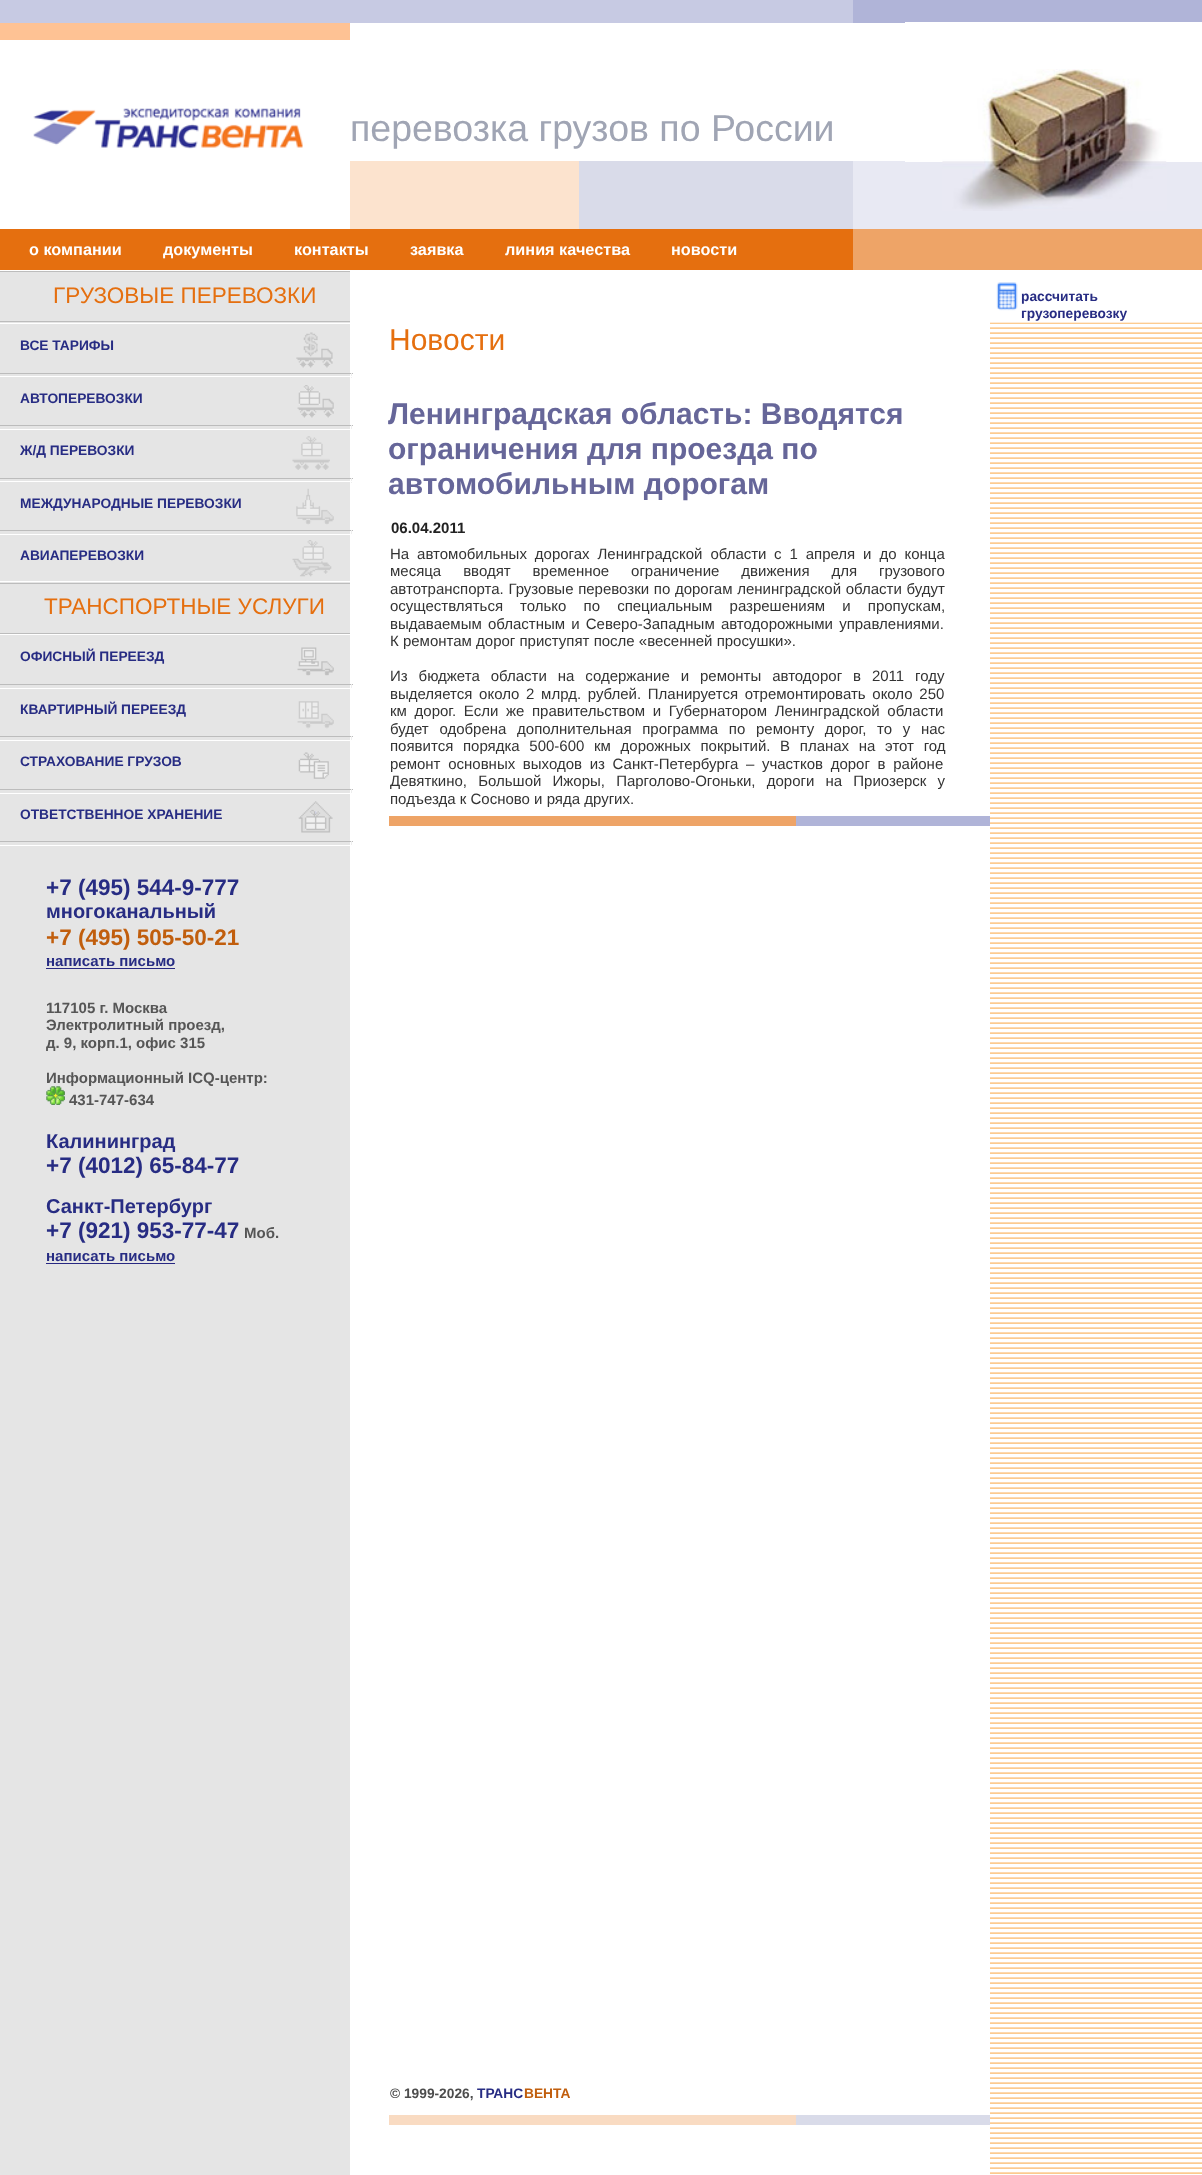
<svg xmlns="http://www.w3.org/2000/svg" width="1202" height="2175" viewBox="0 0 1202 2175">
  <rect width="100%" height="100%" fill="#ffffff"/>
  <rect x="0" y="0" width="853" height="23" fill="#c7cae3"/>
  <rect x="853" y="0" width="52" height="23" fill="#b0b4d8"/>
  <rect x="905" y="0" width="297" height="22" fill="#b0b4d8"/>
  <rect x="0" y="23" width="350" height="17" fill="#fec294"/>
  <rect x="905" y="162" width="297" height="67" fill="#e8e9f3"/>
  <image x="942" y="69" width="225" height="142" href="img1.png"/>
  <image x="33" y="108" width="270" height="41" href="img2.png"/>
  <text x="350" y="141" font-family="Liberation Sans" font-size="37.5" fill="#a0a5b4">перевозка грузов по России</text>
  <rect x="350" y="161" width="229" height="68" fill="#fce3ce"/>
  <rect x="579" y="161" width="274" height="68" fill="#d9dbe9"/>
  <rect x="853" y="161" width="52" height="68" fill="#e8e9f3"/>
  <rect x="0" y="229" width="853" height="41" fill="#e56f0f"/>
  <text x="29" y="255" font-family="Liberation Sans" font-size="16.25" font-weight="bold" fill="#ffffff">о компании</text>
  <text x="163" y="255" font-family="Liberation Sans" font-size="16.25" font-weight="bold" fill="#ffffff">документы</text>
  <text x="294" y="255" font-family="Liberation Sans" font-size="16.25" font-weight="bold" fill="#ffffff">контакты</text>
  <text x="410" y="255" font-family="Liberation Sans" font-size="16.25" font-weight="bold" fill="#ffffff">заявка</text>
  <text x="505" y="255" font-family="Liberation Sans" font-size="16.25" font-weight="bold" fill="#ffffff">линия качества</text>
  <text x="671" y="255" font-family="Liberation Sans" font-size="16.25" font-weight="bold" fill="#ffffff">новости</text>
  <rect x="853" y="229" width="349" height="41" fill="#eea467"/>
  <rect x="0" y="272" width="350" height="1903" fill="#e5e5e5"/>
  <rect x="0" y="271" width="350" height="1" fill="#bcbcbc"/>
  <rect x="0" y="321" width="350" height="1" fill="#bcbcbc"/>
  <rect x="-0.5" y="270.5" width="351" height="53" fill="none" stroke="#ffffff"/>
  <text x="53" y="303" font-family="Liberation Sans" font-size="22.5" fill="#e56f0f">ГРУЗОВЫЕ ПЕРЕВОЗКИ</text>
  <text x="20" y="350" font-family="Liberation Sans" font-size="13.75" font-weight="bold" fill="#272c83">ВСЕ ТАРИФЫ</text>
  <image x="296" y="332" width="37" height="36" href="img3.png"/>
  <rect x="0" y="373" width="353" height="1" fill="#bcbcbc"/>
  <rect x="351" y="373" width="1" height="5" fill="#eeeeee"/>
  <rect x="0" y="376" width="353" height="1" fill="#ffffff"/>
  <text x="20" y="403" font-family="Liberation Sans" font-size="13.75" font-weight="bold" fill="#272c83">АВТОПЕРЕВОЗКИ</text>
  <image x="297" y="385" width="37" height="33" href="img4.png"/>
  <rect x="0" y="425" width="353" height="1" fill="#bcbcbc"/>
  <rect x="351" y="425" width="1" height="5" fill="#eeeeee"/>
  <rect x="0" y="429" width="353" height="1" fill="#ffffff"/>
  <text x="20" y="455" font-family="Liberation Sans" font-size="13.75" font-weight="bold" fill="#272c83">Ж/Д ПЕРЕВОЗКИ</text>
  <image x="292" y="436" width="38" height="34" href="img5.png"/>
  <rect x="0" y="478" width="353" height="1" fill="#bcbcbc"/>
  <rect x="351" y="478" width="1" height="5" fill="#eeeeee"/>
  <rect x="0" y="481" width="353" height="1" fill="#ffffff"/>
  <text x="20" y="508" font-family="Liberation Sans" font-size="13.75" font-weight="bold" fill="#272c83">МЕЖДУНАРОДНЫЕ ПЕРЕВОЗКИ</text>
  <image x="296" y="488" width="38" height="37" href="img6.png"/>
  <rect x="0" y="530" width="353" height="1" fill="#bcbcbc"/>
  <rect x="351" y="530" width="1" height="5" fill="#eeeeee"/>
  <rect x="0" y="534" width="353" height="1" fill="#ffffff"/>
  <text x="20" y="560" font-family="Liberation Sans" font-size="13.75" font-weight="bold" fill="#272c83">АВИАПЕРЕВОЗКИ</text>
  <image x="292" y="540" width="40" height="37" href="img7.png"/>
  <rect x="0" y="583" width="350" height="1" fill="#bcbcbc"/>
  <rect x="0" y="633" width="350" height="1" fill="#bcbcbc"/>
  <rect x="-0.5" y="581.5" width="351" height="53" fill="none" stroke="#ffffff"/>
  <text x="44" y="614" font-family="Liberation Sans" font-size="22.5" fill="#e56f0f">ТРАНСПОРТНЫЕ УСЛУГИ</text>
  <text x="20" y="661" font-family="Liberation Sans" font-size="13.75" font-weight="bold" fill="#272c83">ОФИСНЫЙ ПЕРЕЕЗД</text>
  <image x="297" y="647" width="37" height="29" href="img8.png"/>
  <rect x="0" y="684" width="353" height="1" fill="#bcbcbc"/>
  <rect x="351" y="684" width="1" height="5" fill="#eeeeee"/>
  <rect x="0" y="688" width="353" height="1" fill="#ffffff"/>
  <text x="20" y="714" font-family="Liberation Sans" font-size="13.75" font-weight="bold" fill="#272c83">КВАРТИРНЫЙ ПЕРЕЕЗД</text>
  <image x="297" y="701" width="37" height="28" href="img9.png"/>
  <rect x="0" y="736" width="353" height="1" fill="#bcbcbc"/>
  <rect x="351" y="736" width="1" height="5" fill="#eeeeee"/>
  <rect x="0" y="740" width="353" height="1" fill="#ffffff"/>
  <text x="20" y="766" font-family="Liberation Sans" font-size="13.75" font-weight="bold" fill="#272c83">СТРАХОВАНИЕ ГРУЗОВ</text>
  <image x="298" y="752" width="31" height="27" href="img10.png"/>
  <rect x="0" y="789" width="353" height="1" fill="#bcbcbc"/>
  <rect x="351" y="789" width="1" height="5" fill="#eeeeee"/>
  <rect x="0" y="793" width="353" height="1" fill="#ffffff"/>
  <text x="20" y="819" font-family="Liberation Sans" font-size="13.75" font-weight="bold" fill="#272c83">ОТВЕТСТВЕННОЕ ХРАНЕНИЕ</text>
  <image x="298" y="801" width="35" height="32" href="img11.png"/>
  <rect x="0" y="841" width="353" height="1" fill="#bcbcbc"/>
  <rect x="351" y="841" width="1" height="5" fill="#eeeeee"/>
  <rect x="0" y="845" width="353" height="1" fill="#ffffff"/>
  <text x="46" y="895" font-family="Liberation Sans" font-size="22.5" font-weight="bold" fill="#272c83">+7 (495) 544-9-777</text>
  <text x="46" y="918" font-family="Liberation Sans" font-size="20" font-weight="bold" fill="#272c83">многоканальный</text>
  <text x="46" y="945" font-family="Liberation Sans" font-size="22.5" font-weight="bold" fill="#c15e0d">+7 (495) 505-50-21</text>
  <text x="46" y="966" font-family="Liberation Sans" font-size="15" font-weight="bold" fill="#272c83">написать письмо</text>
  <rect x="46" y="968" width="129" height="1" fill="#282882"/>
  <text x="46" y="1013" font-family="Liberation Sans" font-size="15" font-weight="bold" fill="#565656">117105 г. Москва</text>
  <text x="46" y="1030" font-family="Liberation Sans" font-size="15" font-weight="bold" fill="#565656">Электролитный проезд,</text>
  <text x="46" y="1048" font-family="Liberation Sans" font-size="15" font-weight="bold" fill="#565656">д. 9, корп.1, офис 315</text>
  <text x="46" y="1083" font-family="Liberation Sans" font-size="15" font-weight="bold" fill="#565656">Информационный ICQ-центр:</text>
  <image x="46" y="1086" width="19" height="19" href="img12.png"/>
  <text x="69" y="1105" font-family="Liberation Sans" font-size="15" font-weight="bold" fill="#565656">431-747-634</text>
  <text x="46" y="1148" font-family="Liberation Sans" font-size="20" font-weight="bold" fill="#272c83">Калининград</text>
  <text x="46" y="1173" font-family="Liberation Sans" font-size="22.5" font-weight="bold" fill="#272c83">+7 (4012) 65-84-77</text>
  <text x="46" y="1213" font-family="Liberation Sans" font-size="20" font-weight="bold" fill="#272c83">Санкт-Петербург</text>
  <text x="46" y="1238" font-family="Liberation Sans" font-size="22.5" font-weight="bold" fill="#272c83">+7 (921) 953-77-47</text>
  <text x="244" y="1238" font-family="Liberation Sans" font-size="15" font-weight="bold" fill="#565656">Моб.</text>
  <text x="46" y="1261" font-family="Liberation Sans" font-size="15" font-weight="bold" fill="#272c83">написать письмо</text>
  <rect x="46" y="1263" width="129" height="1" fill="#282882"/>
  <image x="996" y="282" width="22" height="29" href="img13.png"/>
  <text x="1021" y="301" font-family="Liberation Sans" font-size="13.75" font-weight="bold" fill="#272c83">рассчитать</text>
  <text x="1021" y="318" font-family="Liberation Sans" font-size="13.75" font-weight="bold" fill="#272c83">грузоперевозку</text>
  <image x="990" y="322" width="212" height="1852" href="img14.png"/>
  <text x="389" y="350" font-family="Liberation Sans" font-size="30" fill="#e56f0f">Новости</text>
  <text x="388" y="424" font-family="Liberation Sans" font-size="30" font-weight="bold" fill="#666699">Ленинградская область: Вводятся</text>
  <text x="388" y="459" font-family="Liberation Sans" font-size="30" font-weight="bold" fill="#666699">ограничения для проезда по</text>
  <text x="388" y="494" font-family="Liberation Sans" font-size="30" font-weight="bold" fill="#666699">автомобильным дорогам</text>
  <text x="391" y="533" font-family="Liberation Sans" font-size="15" font-weight="bold" fill="#222222">06.04.2011</text>
  <text x="390" y="559" word-spacing="3.75" font-family="Liberation Sans" font-size="15" fill="#333333">На автомобильных дорогах Ленинградской области</text>
  <text x="774" y="559" word-spacing="3.75" font-family="Liberation Sans" font-size="15" fill="#333333">с 1 апреля и до конца</text>
  <text x="390" y="576" word-spacing="17.75" font-family="Liberation Sans" font-size="15" fill="#333333">месяца вводят временное ограничение движения для грузового</text>
  <text x="390" y="594" word-spacing="0.5" font-family="Liberation Sans" font-size="15" fill="#333333">автотранспорта. Грузовые перевозки по дорогам ленинградской области будут</text>
  <text x="390" y="611" font-family="Liberation Sans" font-size="15" fill="#333333">осуществляться</text>
  <text x="520" y="611" word-spacing="13" font-family="Liberation Sans" font-size="15" fill="#333333">только по специальным разрешениям и пропускам,</text>
  <text x="390" y="629" word-spacing="2" font-family="Liberation Sans" font-size="15" fill="#333333">выдаваемым областным и Северо-Западным автодорожными управлениями.</text>
  <text x="390" y="646" font-family="Liberation Sans" font-size="15" fill="#333333">К ремонтам дорог приступят после «весенней просушки».</text>
  <text x="390" y="681" word-spacing="6.75" font-family="Liberation Sans" font-size="15" fill="#333333">Из бюджета области на содержание и ремонты автодорог в 2011 году</text>
  <text x="390" y="699" word-spacing="2.5" font-family="Liberation Sans" font-size="15" fill="#333333">выделяется около 2 млрд. рублей. Планируется отремонтировать около 250</text>
  <text x="390" y="716" word-spacing="3.5" font-family="Liberation Sans" font-size="15" fill="#333333">км дорог. Если же правительством и Губернатором Ленинградской области</text>
  <text x="390" y="734" word-spacing="6.5" font-family="Liberation Sans" font-size="15" fill="#333333">будет одобрена дополнительная программа по ремонту дорог, то у нас</text>
  <text x="390" y="751" word-spacing="5.5" font-family="Liberation Sans" font-size="15" fill="#333333">появится порядка 500-600 км дорожных покрытий. В планах на этот год</text>
  <text x="390" y="769" word-spacing="3.5" font-family="Liberation Sans" font-size="15" fill="#333333">ремонт основных выходов из Санкт-Петербурга – участков дорог в районе</text>
  <text x="390" y="786" word-spacing="7" font-family="Liberation Sans" font-size="15" fill="#333333">Девяткино, Большой Ижоры, Парголово-Огоньки, дороги на Приозерск у</text>
  <text x="390" y="804" font-family="Liberation Sans" font-size="15" fill="#333333">подъезда к Сосново и ряда других.</text>
  <rect x="389" y="816" width="407" height="10" fill="#eea467"/>
  <rect x="796" y="816" width="194" height="10" fill="#b0b4d8"/>
  <text x="390" y="2098" font-family="Liberation Sans" font-size="13.75" font-weight="bold" fill="#4d4d4d">© 1999-2026,</text>
  <text x="477" y="2098" font-family="Liberation Sans" font-size="13.75" font-weight="bold" fill="#272c83">ТРАНС</text>
  <text x="524" y="2098" font-family="Liberation Sans" font-size="13.75" font-weight="bold" fill="#c15e0d">ВЕНТА</text>
  <rect x="389" y="2115" width="407" height="10" fill="#f9dbc2"/>
  <rect x="796" y="2115" width="194" height="10" fill="#d9dbe9"/>
</svg>
